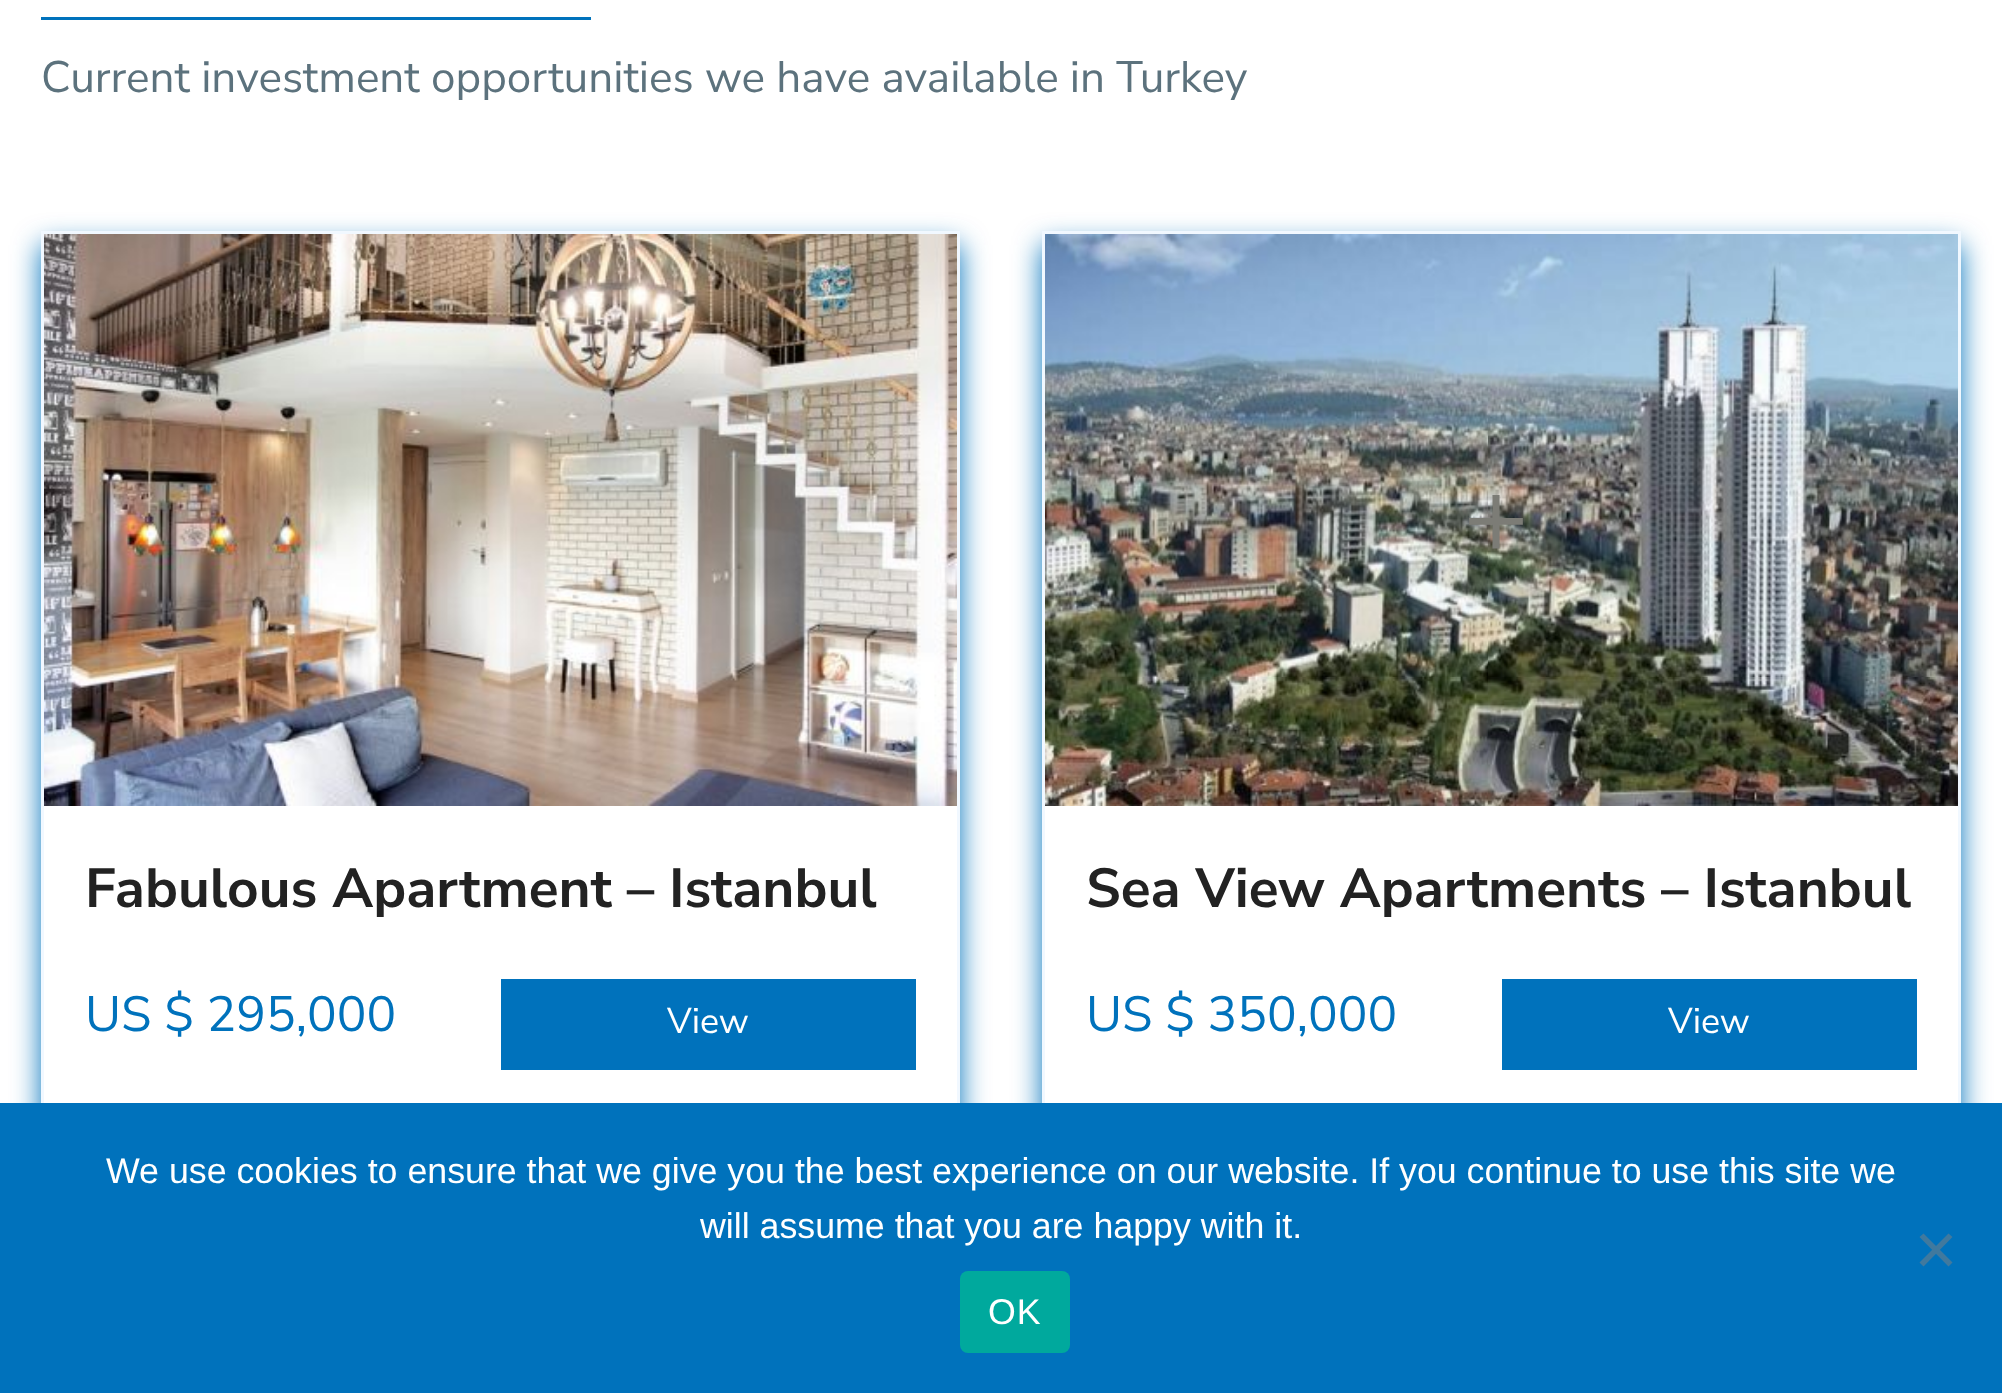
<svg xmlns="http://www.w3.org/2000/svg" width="2002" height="1393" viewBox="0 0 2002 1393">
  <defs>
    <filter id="blur1" x="-50%" y="-200%" width="200%" height="500%"><feGaussianBlur stdDeviation="14"/></filter>
  </defs>
  <rect width="100%" height="100%" fill="#ffffff"/>
  <rect x="41" y="17" width="550" height="3" fill="#0072bc"/>
  <text x="41" y="92" font-family="Nunito Sans" font-size="44" fill="#5c727d">Current investment opportunities we have available in Turkey</text>
  <rect x="41" y="245" width="919" height="962" fill="#0072bc" filter="url(#blur1)"/>
  <rect x="44" y="806" width="913" height="297" fill="#ffffff"/>
  <rect x="42.5" y="232.5" width="916" height="960" fill="none" stroke="#f1f8ff" stroke-width="3"/>
  <image x="44" y="234" width="913" height="572" href="img1.png"/>
  <text x="85" y="907" font-family="Nunito Sans" font-size="55" font-weight="bold" fill="#222222">Fabulous Apartment – Istanbul</text>
  <text x="85" y="1031" font-family="Nunito Sans" font-size="49.5" fill="#0072bc">US $ 295,000</text>
  <rect x="501" y="979" width="415" height="91" fill="#0072bc"/>
  <text x="667" y="1033" font-family="Nunito Sans" font-size="35.75" fill="#ffffff">View</text>
  <rect x="1042" y="245" width="919" height="962" fill="#0072bc" filter="url(#blur1)"/>
  <rect x="1045" y="804" width="913" height="299" fill="#ffffff"/>
  <rect x="1043.5" y="232.5" width="916" height="960" fill="none" stroke="#f1f8ff" stroke-width="3"/>
  <image x="1045" y="234" width="913" height="572" href="img2.png"/>
  <text x="1463" y="553" font-family="Nunito Sans" font-size="110" fill="#7c7c76">+</text>
  <text x="1086" y="907" font-family="Nunito Sans" font-size="55" font-weight="bold" fill="#222222">Sea View Apartments – Istanbul</text>
  <text x="1086" y="1031" font-family="Nunito Sans" font-size="49.5" fill="#0072bc">US $ 350,000</text>
  <rect x="1502" y="979" width="415" height="91" fill="#0072bc"/>
  <text x="1668" y="1033" font-family="Nunito Sans" font-size="35.75" fill="#ffffff">View</text>
  <rect x="0" y="1103" width="2002" height="290" fill="#0072bc"/>
  <text x="106" y="1183" font-family="Liberation Sans" font-size="35.75" fill="#ffffff">We use cookies to ensure that we give you the best experience on our website. If you continue to use this site we</text>
  <text x="700" y="1238" font-family="Liberation Sans" font-size="35.75" fill="#ffffff">will assume that you are happy with it.</text>
  <path d="M1948.5 1233.5L1952.5 1237L1923.5 1266.5L1919.5 1262.5Z" fill="#40799e"/>
  <path d="M1919.5 1237L1923.5 1233.5L1952.5 1262.5L1948.5 1266.5Z" fill="#40799e"/>
  <rect x="960" y="1271" width="110" height="82" rx="8" fill="#00a99d"/>
  <text x="988" y="1324" font-family="Liberation Sans" font-size="35.75" letter-spacing="1" fill="#ffffff">OK</text>
</svg>
